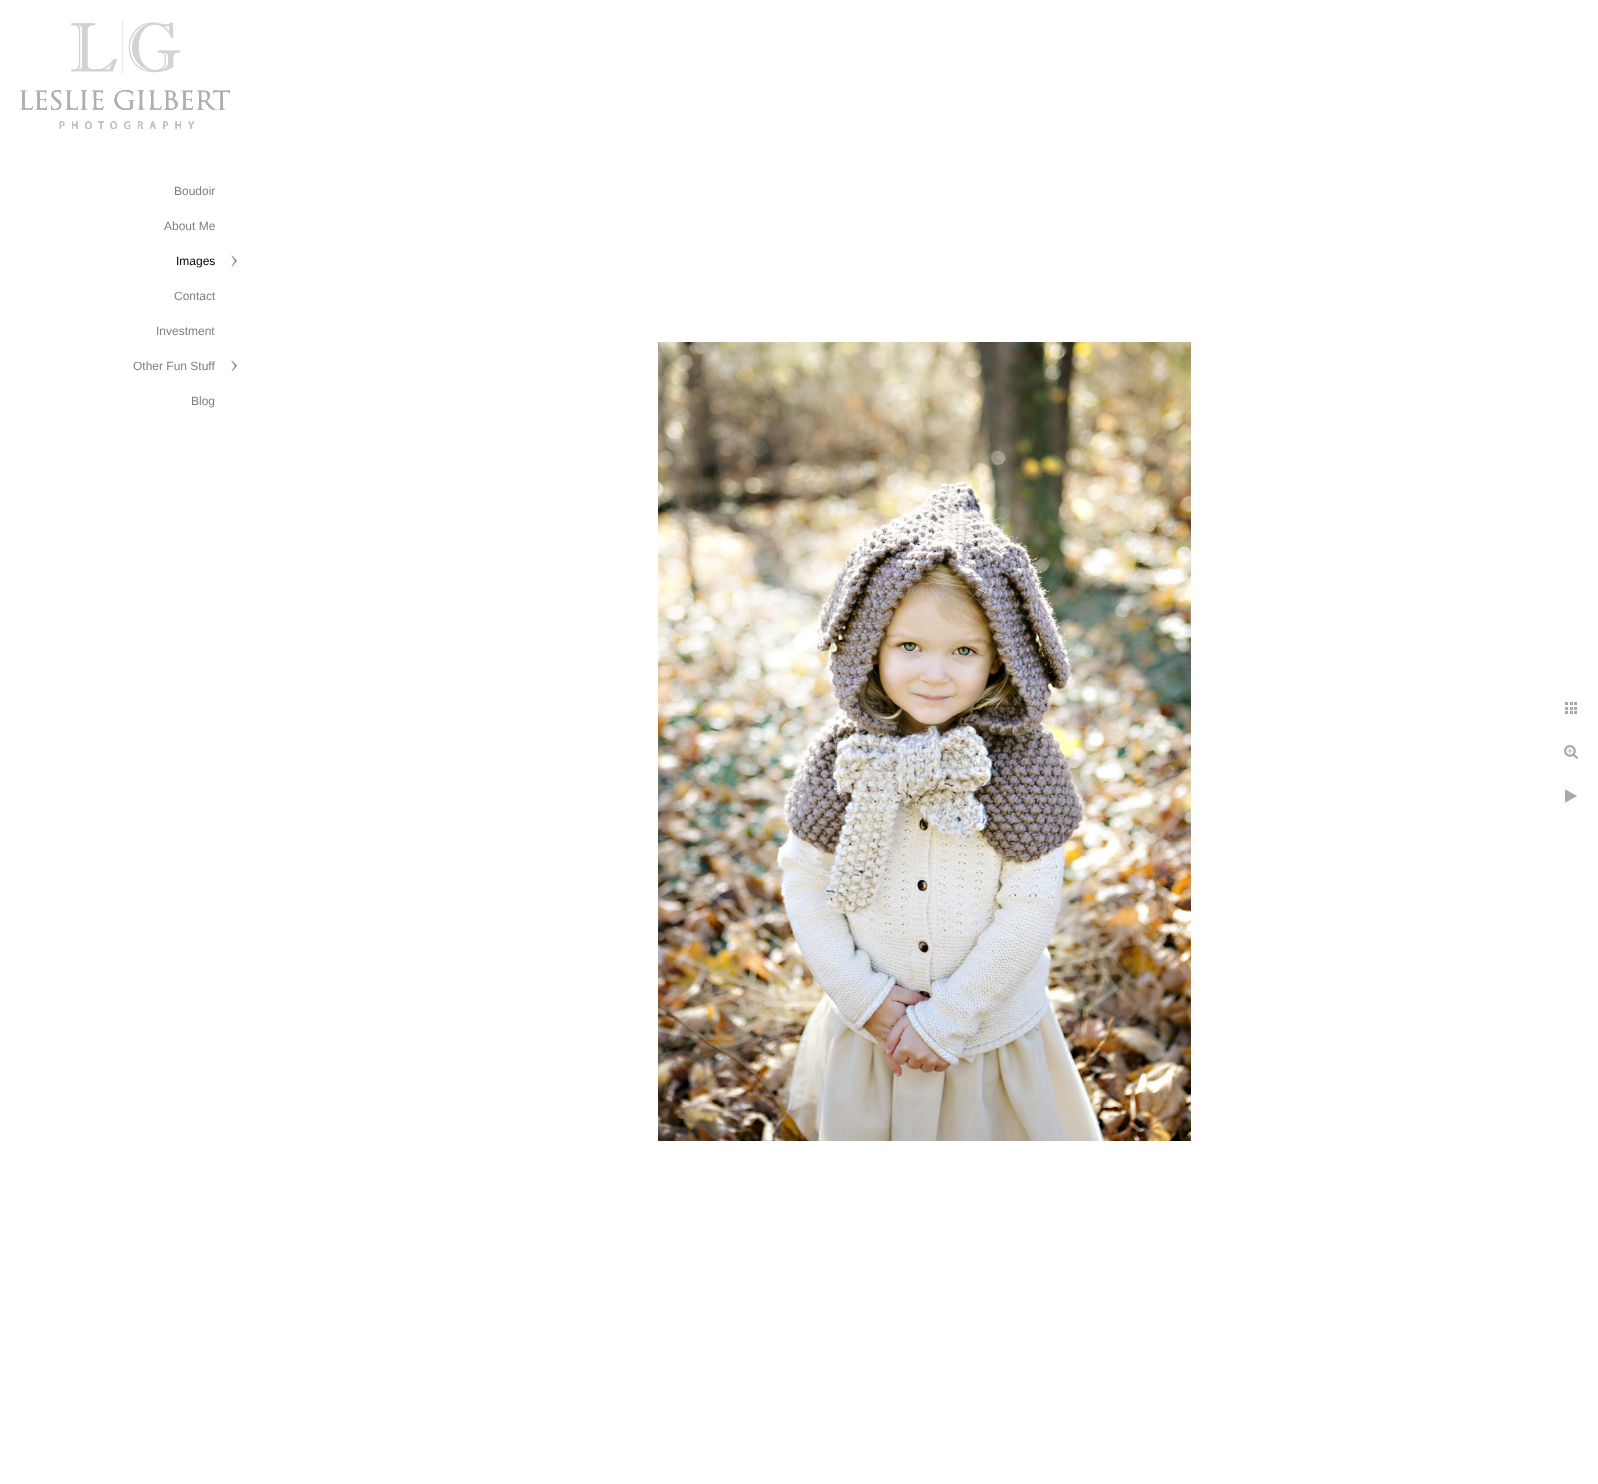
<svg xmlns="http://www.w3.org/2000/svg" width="1598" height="1484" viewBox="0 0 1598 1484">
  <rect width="100%" height="100%" fill="#ffffff"/>
  <image x="20" y="20" width="210" height="109" href="img1.png"/>
  <text x="174" y="195" font-family="Liberation Sans" font-size="12" fill="#808080">Boudoir</text>
  <text x="164" y="230" font-family="Liberation Sans" font-size="12" fill="#808080">About Me</text>
  <text x="176" y="265" font-family="Liberation Sans" font-size="12" fill="#000000">Images</text>
  <image x="231" y="255" width="6" height="12" href="img2.png"/>
  <text x="174" y="300" font-family="Liberation Sans" font-size="12" fill="#808080">Contact</text>
  <text x="156" y="335" font-family="Liberation Sans" font-size="12" fill="#808080">Investment</text>
  <text x="133" y="370" font-family="Liberation Sans" font-size="12" fill="#808080">Other Fun Stuff</text>
  <image x="231" y="360" width="6" height="12" href="img2.png"/>
  <text x="191" y="405" font-family="Liberation Sans" font-size="12" fill="#808080">Blog</text>
  <image x="658" y="342" width="533" height="799" href="img3.png"/>
  <image x="1565" y="702" width="12" height="12" href="img4.png"/>
  <image x="1564" y="745" width="14" height="14" href="img5.png"/>
  <image x="1565" y="789" width="12" height="14" href="img6.png"/>
</svg>
